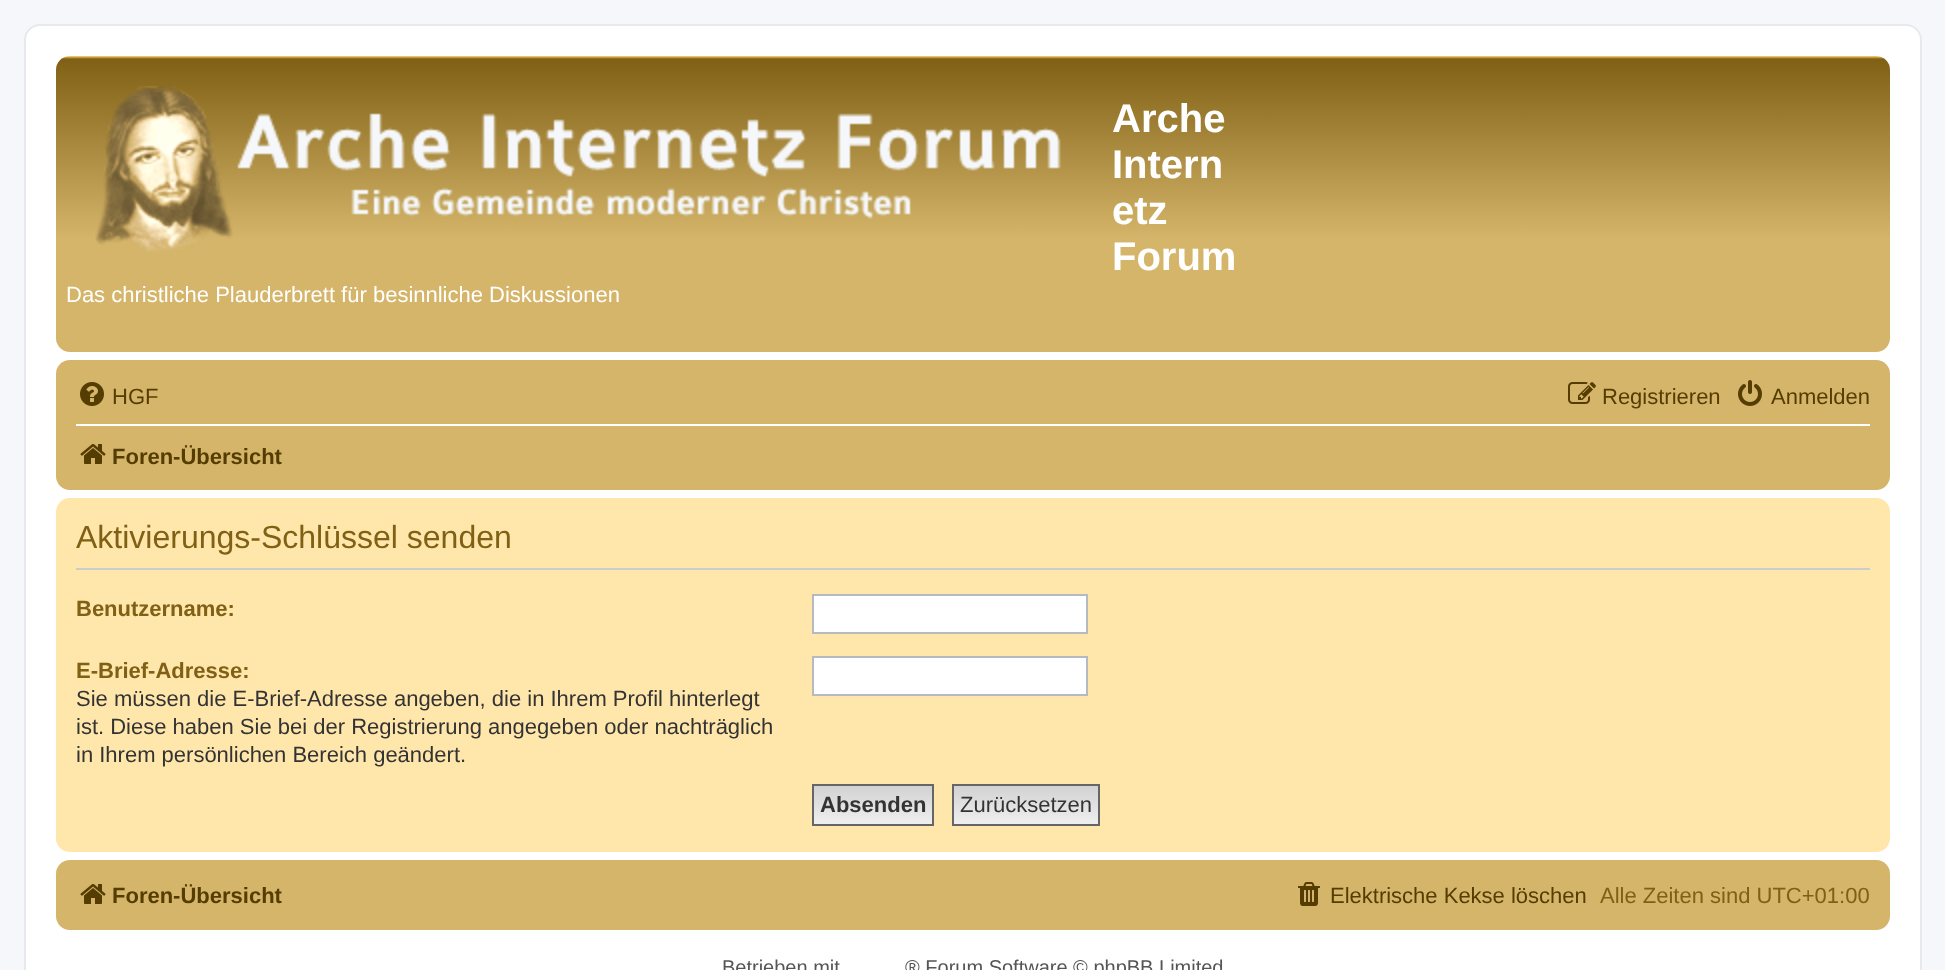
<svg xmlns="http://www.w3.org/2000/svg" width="1945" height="970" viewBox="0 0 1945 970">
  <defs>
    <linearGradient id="g1" gradientUnits="userSpaceOnUse" x1="973" y1="56" x2="973" y2="352"><stop offset="0" stop-color="#ffd77a"/><stop offset="0.01" stop-color="#806015"/><stop offset="0.62" stop-color="#d4b56a"/><stop offset="1" stop-color="#d4b56a"/></linearGradient>
    <linearGradient id="g2" gradientUnits="userSpaceOnUse" x1="873" y1="786" x2="873" y2="824"><stop offset="0" stop-color="#d2d2d2"/><stop offset="1" stop-color="#efefef"/></linearGradient>
    <linearGradient id="g3" gradientUnits="userSpaceOnUse" x1="1026" y1="786" x2="1026" y2="824"><stop offset="0" stop-color="#d2d2d2"/><stop offset="1" stop-color="#efefef"/></linearGradient>
  </defs>
  <rect width="100%" height="100%" fill="#f5f7fa"/>
  <rect x="25" y="25" width="1896" height="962" rx="15" fill="#ffffff" stroke="#e6e9ed" stroke-width="2"/>
  <rect x="56" y="56" width="1834" height="296" rx="14" fill="url(#g1)"/>
  <image x="95" y="86" width="966" height="166" href="img1.png"/>
  <text x="1112" y="132" font-family="Liberation Sans" font-size="40" font-weight="bold" fill="#ffffff">Arche</text>
  <text x="1112" y="178" font-family="Liberation Sans" font-size="40" font-weight="bold" fill="#ffffff">Intern</text>
  <text x="1112" y="224" font-family="Liberation Sans" font-size="40" font-weight="bold" fill="#ffffff">etz</text>
  <text x="1112" y="270" font-family="Liberation Sans" font-size="40" font-weight="bold" fill="#ffffff">Forum</text>
  <text x="66" y="302" font-family="Liberation Sans" font-size="22" fill="#ffffff">Das christliche Plauderbrett für besinnliche Diskussionen</text>
  <rect x="56" y="360" width="1834" height="130" rx="14" fill="#d4b56a"/>
  <image x="80" y="382" width="24" height="24" href="img2.png"/>
  <text x="112" y="404" font-family="Liberation Sans" font-size="22" fill="#553c00">HGF</text>
  <image x="1568" y="382" width="28" height="22" href="img3.png"/>
  <text x="1602" y="404" font-family="Liberation Sans" font-size="22" fill="#553c00">Registrieren</text>
  <image x="1738" y="380" width="24" height="26" href="img4.png"/>
  <text x="1771" y="404" font-family="Liberation Sans" font-size="22" fill="#553c00">Anmelden</text>
  <rect x="76" y="424" width="1794" height="2" fill="#ffffff"/>
  <image x="80" y="444" width="26" height="20" href="img5.png"/>
  <text x="112" y="464" font-family="Liberation Sans" font-size="22" font-weight="bold" fill="#553c00">Foren-Übersicht</text>
  <rect x="56" y="498" width="1834" height="354" rx="14" fill="#ffe6aa"/>
  <rect x="76" y="568" width="1794" height="2" fill="#cccccc"/>
  <text x="76" y="548" font-family="Liberation Sans" font-size="32" fill="#806015">Aktivierungs-Schlüssel senden</text>
  <text x="76" y="616" font-family="Liberation Sans" font-size="22" font-weight="bold" fill="#806015">Benutzername:</text>
  <rect x="813" y="595" width="274" height="38" fill="#ffffff" stroke="#b4bac0" stroke-width="2"/>
  <text x="76" y="678" font-family="Liberation Sans" font-size="22" font-weight="bold" fill="#806015">E-Brief-Adresse:</text>
  <text x="76" y="706" font-family="Liberation Sans" font-size="22" fill="#333333">Sie müssen die E-Brief-Adresse angeben, die in Ihrem Profil hinterlegt</text>
  <text x="76" y="734" font-family="Liberation Sans" font-size="22" fill="#333333">ist. Diese haben Sie bei der Registrierung angegeben oder nachträglich</text>
  <text x="76" y="762" font-family="Liberation Sans" font-size="22" fill="#333333">in Ihrem persönlichen Bereich geändert.</text>
  <rect x="813" y="657" width="274" height="38" fill="#ffffff" stroke="#b4bac0" stroke-width="2"/>
  <rect x="814" y="786" width="118" height="38" fill="url(#g2)"/>
  <rect x="813" y="785" width="120" height="40" fill="none" stroke="#666666" stroke-width="2"/>
  <text x="820" y="812" font-family="Liberation Sans" font-size="22" font-weight="bold" fill="#333333">Absenden</text>
  <rect x="954" y="786" width="144" height="38" fill="url(#g3)"/>
  <rect x="953" y="785" width="146" height="40" fill="none" stroke="#666666" stroke-width="2"/>
  <text x="960" y="812" font-family="Liberation Sans" font-size="22" fill="#333333">Zurücksetzen</text>
  <rect x="56" y="860" width="1834" height="70" rx="14" fill="#d4b56a"/>
  <image x="80" y="884" width="26" height="20" href="img5.png"/>
  <text x="112" y="903" font-family="Liberation Sans" font-size="22" font-weight="bold" fill="#553c00">Foren-Übersicht</text>
  <image x="1298" y="882" width="22" height="24" href="img6.png"/>
  <text x="1330" y="903" font-family="Liberation Sans" font-size="22" fill="#553c00">Elektrische Kekse löschen</text>
  <text x="1600" y="903" font-family="Liberation Sans" font-size="22" fill="#806015">Alle Zeiten sind UTC+01:00</text>
  <text x="722" y="974" font-family="Liberation Sans" font-size="20" fill="#555555">Betrieben mit</text>
  <text x="905" y="974" font-family="Liberation Sans" font-size="20" fill="#555555">® Forum Software © phpBB Limited</text>
</svg>
